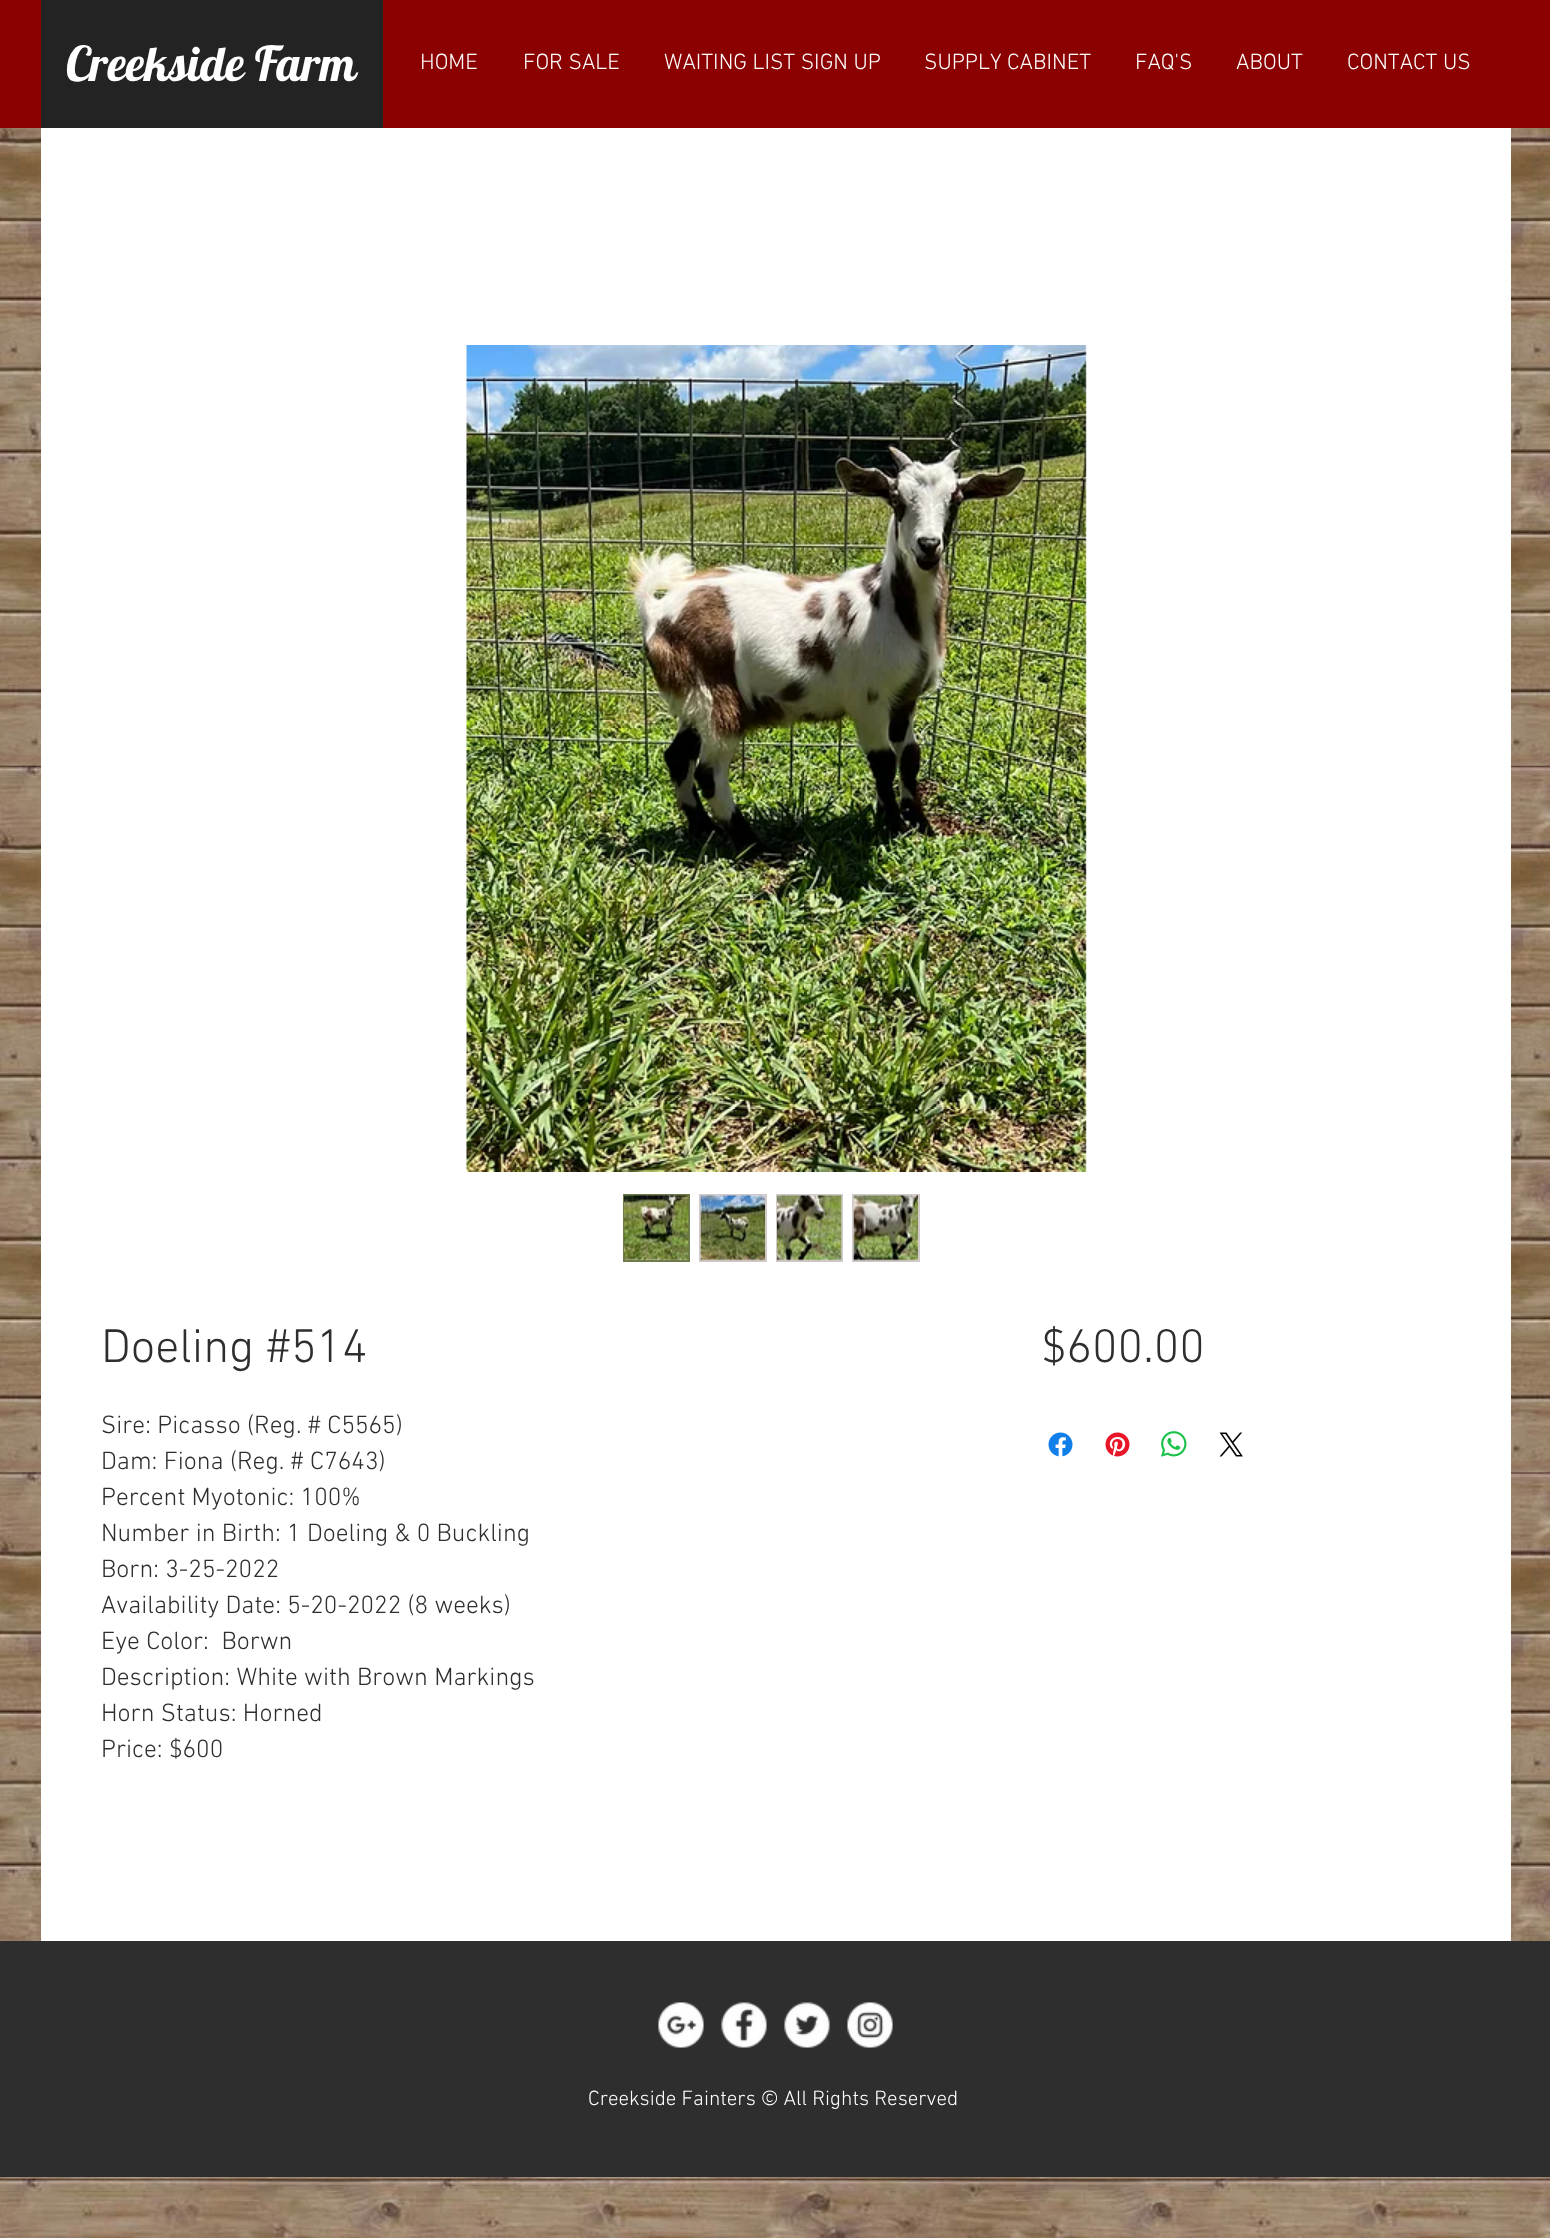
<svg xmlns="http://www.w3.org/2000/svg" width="1550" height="2238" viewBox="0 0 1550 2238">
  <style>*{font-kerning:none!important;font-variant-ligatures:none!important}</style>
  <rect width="100%" height="100%" fill="#ffffff"/>
  <rect x="0" y="0" width="1550" height="128" fill="#8b0000"/>
  <rect x="41" y="0" width="342" height="128" fill="#232323"/>
  <text x="66" y="81" font-family="Lobster" font-size="48" fill="#ffffff">Creekside Farm</text>
  <text x="420" y="69" font-family="'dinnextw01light'" font-size="22.5" font-weight="300" fill="#ffffff">HOME</text>
  <text x="523" y="69" font-family="'dinnextw01light'" font-size="22.5" font-weight="300" fill="#ffffff">FOR SALE</text>
  <text x="664" y="69" font-family="'dinnextw01light'" font-size="22.5" font-weight="300" fill="#ffffff">WAITING LIST SIGN UP</text>
  <text x="924" y="69" font-family="'dinnextw01light'" font-size="22.5" font-weight="300" fill="#ffffff">SUPPLY CABINET</text>
  <text x="1135" y="69" font-family="'dinnextw01light'" font-size="22.5" font-weight="300" fill="#ffffff">FAQ'S</text>
  <text x="1236" y="69" font-family="'dinnextw01light'" font-size="22.5" font-weight="300" fill="#ffffff">ABOUT</text>
  <text x="1347" y="69" font-family="'dinnextw01light'" font-size="22.5" font-weight="300" fill="#ffffff">CONTACT US</text>
  <image x="0" y="128" width="1550" height="2110" href="img14.png"/>
  <rect x="41" y="128" width="1470" height="1813" fill="#ffffff"/>
  <image x="466" y="345" width="621" height="827" href="img1.png"/>
  <rect x="625" y="1259" width="63" height="1" fill="#d1cac9"/>
  <rect x="624" y="1195" width="65" height="66" fill="none" stroke="#6c7a4c" stroke-width="2"/>
  <image x="624" y="1195" width="65" height="66" href="img2.png"/>
  <rect x="699" y="1194" width="68" height="68" fill="#d1cac9"/>
  <image x="700" y="1195" width="65" height="66" href="img3.png"/>
  <rect x="776" y="1194" width="67" height="68" fill="#d1cac9"/>
  <image x="777" y="1195" width="65" height="66" href="img4.png"/>
  <rect x="852" y="1194" width="68" height="68" fill="#d1cac9"/>
  <image x="853" y="1195" width="65" height="66" href="img5.png"/>
  <text x="101" y="1362" font-family="'dinnextw01light'" font-size="48" font-weight="300" fill="#2f2e2e">Doeling #514</text>
  <text x="101" y="1433" font-family="'dinnextw01light'" font-size="25.5" font-weight="300" fill="#2f2e2e">Sire: Picasso (Reg. # C5565)</text>
  <text x="101" y="1469" font-family="'dinnextw01light'" font-size="25.5" font-weight="300" fill="#2f2e2e">Dam: Fiona (Reg. # C7643)</text>
  <text x="101" y="1505" font-family="'dinnextw01light'" font-size="25.5" font-weight="300" fill="#2f2e2e">Percent Myotonic: 100%</text>
  <text x="101" y="1541" font-family="'dinnextw01light'" font-size="25.5" font-weight="300" fill="#2f2e2e">Number in Birth: 1 Doeling &amp; 0 Buckling</text>
  <text x="101" y="1577" font-family="'dinnextw01light'" font-size="25.5" font-weight="300" fill="#2f2e2e">Born: 3-25-2022</text>
  <text x="101" y="1613" font-family="'dinnextw01light'" font-size="25.5" font-weight="300" fill="#2f2e2e">Availability Date: 5-20-2022 (8 weeks)</text>
  <text x="101" y="1649" font-family="'dinnextw01light'" font-size="25.5" font-weight="300" fill="#2f2e2e" xml:space="preserve">Eye Color:  Borwn</text>
  <text x="101" y="1685" font-family="'dinnextw01light'" font-size="25.5" font-weight="300" fill="#2f2e2e">Description: White with Brown Markings</text>
  <text x="101" y="1721" font-family="'dinnextw01light'" font-size="25.5" font-weight="300" fill="#2f2e2e">Horn Status: Horned</text>
  <text x="101" y="1757" font-family="'dinnextw01light'" font-size="25.5" font-weight="300" fill="#2f2e2e">Price: $600</text>
  <text x="1041" y="1362" font-family="'dinnextw01light'" font-size="48" font-weight="300" fill="#2f2e2e">$600.00</text>
  <image x="1048" y="1432" width="25" height="25" href="img6.png"/>
  <image x="1105" y="1432" width="25" height="25" href="img7.png"/>
  <image x="1161" y="1431" width="26" height="26" href="img8.png"/>
  <image x="1219" y="1432" width="24" height="25" href="img9.png"/>
  <rect x="0" y="1941" width="1550" height="236" fill="#2f2e2e"/>
  <image x="658" y="2002" width="46" height="46" href="img10.png"/>
  <image x="721" y="2002" width="46" height="46" href="img11.png"/>
  <image x="784" y="2002" width="46" height="46" href="img12.png"/>
  <image x="847" y="2002" width="46" height="46" href="img13.png"/>
  <text x="588" y="2105" font-family="'dinnextw01light'" font-size="21" font-weight="300" fill="#ffffff">Creekside Fainters © All Rights Reserved</text>
</svg>
